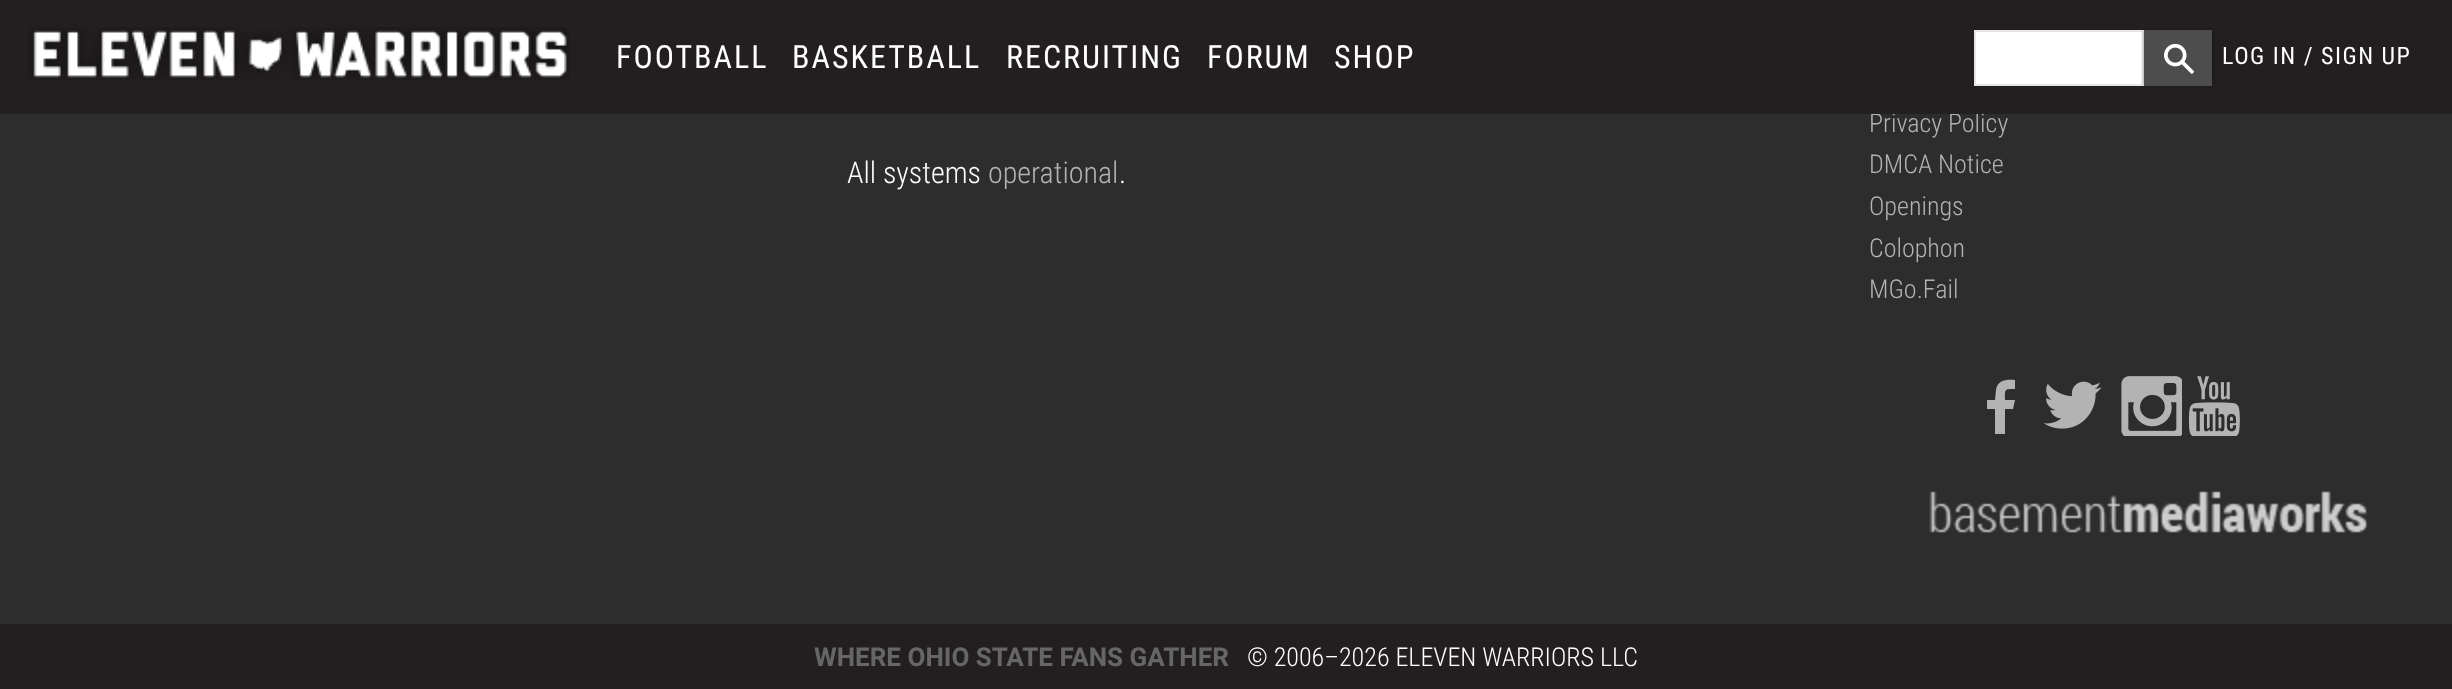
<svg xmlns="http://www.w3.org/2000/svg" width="2452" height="689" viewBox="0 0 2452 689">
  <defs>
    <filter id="blur1" x="-50%" y="-200%" width="200%" height="500%"><feGaussianBlur stdDeviation="2"/></filter>
  </defs>
  <rect width="100%" height="100%" fill="#231f20"/>
  <rect x="0" y="114" width="2452" height="510" fill="#2d2d2d"/>
  <text x="1869" y="132" font-family="Roboto Condensed" font-size="26" font-weight="300" fill="#b3b3b3">Privacy Policy</text>
  <rect x="1871" y="112" width="113" height="2" fill="#212121"/>
  <image x="28" y="27" width="542" height="53" href="img1.png"/>
  <text x="616" y="68" font-family="Roboto Condensed" font-size="32" letter-spacing="2" fill="#ffffff">FOOTBALL</text>
  <text x="792" y="68" font-family="Roboto Condensed" font-size="32" letter-spacing="2" fill="#ffffff">BASKETBALL</text>
  <text x="1006" y="68" font-family="Roboto Condensed" font-size="32" letter-spacing="2" fill="#ffffff">RECRUITING</text>
  <text x="1207" y="68" font-family="Roboto Condensed" font-size="32" letter-spacing="2" fill="#ffffff">FORUM</text>
  <text x="1334" y="68" font-family="Roboto Condensed" font-size="32" letter-spacing="2" fill="#ffffff">SHOP</text>
  <rect x="1975" y="31" width="168" height="54" fill="#ffffff" stroke="#e6e6e6" stroke-width="2"/>
  <rect x="2144" y="30" width="68" height="56" fill="#000000" fill-opacity="0.3" filter="url(#blur1)"/>
  <rect x="2144" y="30" width="68" height="56" fill="#4d4d4d"/>
  <image x="2164" y="43" width="30" height="31" href="img2.png"/>
  <text x="2222" y="64" font-family="Roboto Condensed" font-size="24" letter-spacing="1.5" fill="#ffffff">LOG IN / SIGN UP</text>
  <text x="847" y="183" font-family="Roboto Condensed" font-size="30" font-weight="300" fill="#ffffff">All systems</text>
  <text x="988" y="183" font-family="Roboto Condensed" font-size="30" font-weight="300" fill="#b3b3b3">operational</text>
  <text x="1119" y="183" font-family="Roboto Condensed" font-size="30" font-weight="300" fill="#ffffff">.</text>
  <text x="1869" y="173" font-family="Roboto Condensed" font-size="26" font-weight="300" fill="#b3b3b3">DMCA Notice</text>
  <text x="1869" y="215" font-family="Roboto Condensed" font-size="26" font-weight="300" fill="#b3b3b3">Openings</text>
  <text x="1869" y="257" font-family="Roboto Condensed" font-size="26" font-weight="300" fill="#b3b3b3">Colophon</text>
  <text x="1869" y="298" font-family="Roboto Condensed" font-size="26" font-weight="300" fill="#b3b3b3">MGo.Fail</text>
  <path d="M2015 380V389C2004 389 2005 389 2005 400H2015L2013 409H2005V434H1995V409H1987V400H1995L1996 390C1997 380 2007 379 2015 380Z" fill="#b3b3b3"/>
  <image x="2044" y="381" width="58" height="48" href="img3.png"/>
  <image x="2121" y="376" width="61" height="60" href="img4.png"/>
  <image x="2188" y="376" width="52" height="60" href="img5.png"/>
  <image x="1929" y="491" width="439" height="42" href="img6.png"/>
  <text x="814" y="666" font-family="Heebo" font-size="26" font-weight="bold" fill="#666666">WHERE OHIO STATE FANS GATHER</text>
  <text x="1247" y="666" font-family="Roboto Condensed" font-size="26" font-weight="300" fill="#ffffff">© 2006–2026 ELEVEN WARRIORS LLC</text>
</svg>
